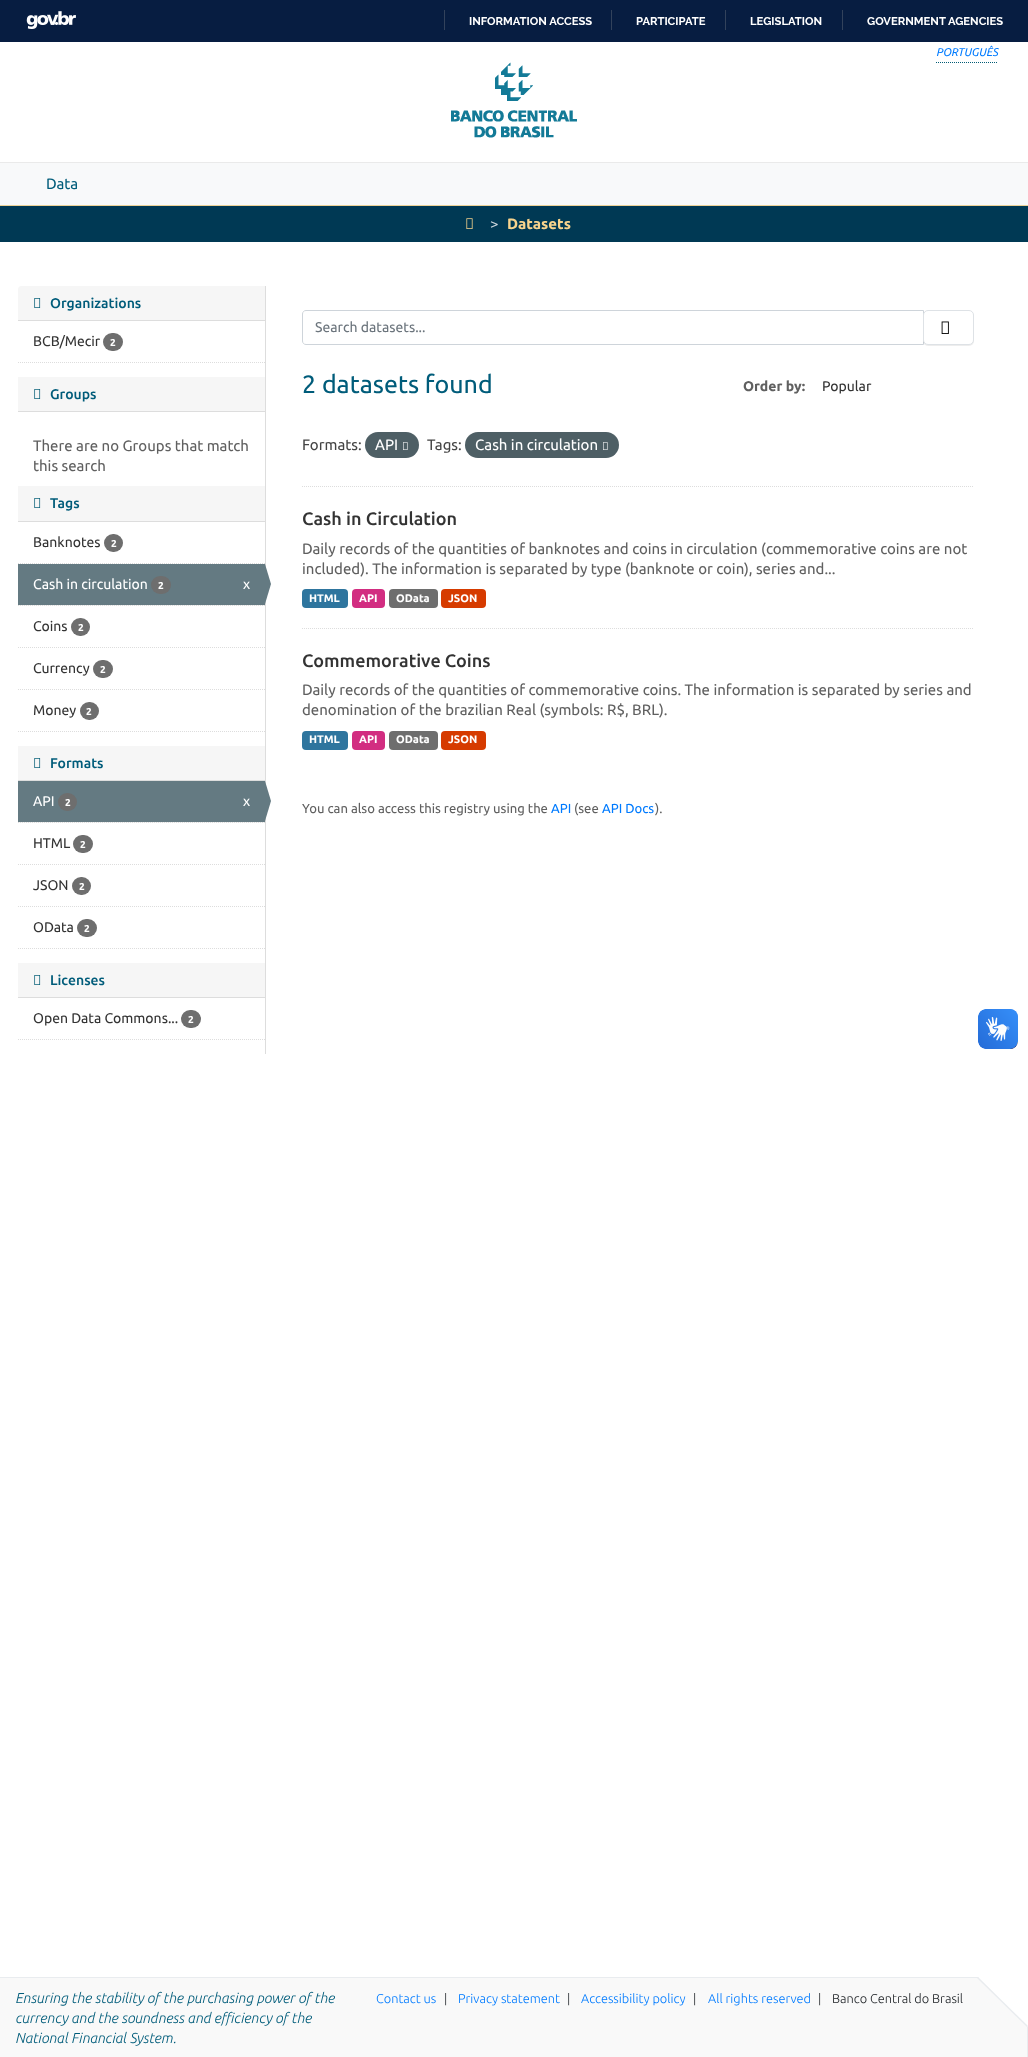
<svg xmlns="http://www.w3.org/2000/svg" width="1028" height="2057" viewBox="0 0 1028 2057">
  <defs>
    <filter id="blur1" x="-50%" y="-200%" width="200%" height="500%"><feGaussianBlur stdDeviation="0.5"/></filter>
  </defs>
  <rect width="100%" height="100%" fill="#ffffff"/>
  <rect x="0" y="0" width="1028" height="42" fill="#071d41"/>
  <image x="26" y="11" width="50" height="18" href="img1.png"/>
  <rect x="444" y="10" width="1" height="20" fill="#32425b"/>
  <text x="469" y="25" font-family="Raleway" font-size="11.25" font-weight="bold" fill="#ffffff">INFORMATION ACCESS</text>
  <rect x="611" y="10" width="1" height="20" fill="#32425b"/>
  <text x="636" y="25" font-family="Raleway" font-size="11.25" font-weight="bold" fill="#ffffff">PARTICIPATE</text>
  <rect x="725" y="10" width="1" height="20" fill="#32425b"/>
  <text x="750" y="25" font-family="Raleway" font-size="11.25" font-weight="bold" fill="#ffffff">LEGISLATION</text>
  <rect x="842" y="10" width="1" height="20" fill="#32425b"/>
  <text x="867" y="25" font-family="Raleway" font-size="11.25" font-weight="bold" fill="#ffffff">GOVERNMENT AGENCIES</text>
  <path d="M936 62.5H998" fill="none" stroke="#025c75" stroke-dasharray="1 1"/>
  <text x="936" y="56" font-family="Ubuntu" font-size="11.25" font-style="italic" fill="#007bff">PORTUGUÊS</text>
  <image x="451" y="62" width="126" height="76" href="img2.png"/>
  <rect x="0" y="163" width="1028" height="42" fill="#f8f9fa"/>
  <rect x="0" y="162" width="1028" height="1" fill="#eaeaea"/>
  <rect x="0" y="205" width="1028" height="1" fill="#edd297"/>
  <text x="46" y="189" font-family="Ubuntu" font-size="15" fill="#005c7a">Data</text>
  <rect x="0" y="206" width="1028" height="36" fill="#003954"/>
  <image x="466" y="218" width="7" height="11" href="img3.png"/>
  <text x="490" y="229" font-family="Ubuntu" font-size="15" fill="#ccd7dd">&gt;</text>
  <text x="507" y="229" font-family="Ubuntu" font-size="15" font-weight="bold" fill="#f8d48d">Datasets</text>
  <path d="M21 286H265V321H18V289C18 287.5 19.5 286 21 286Z" fill="#f6f6f6"/>
  <rect x="18" y="320" width="247" height="1" fill="#dddddd"/>
  <image x="34" y="298" width="7" height="10" href="img4.png"/>
  <text x="50" y="308" font-family="Ubuntu" font-size="14" font-weight="500" fill="#005c7a">Organizations</text>
  <text x="33" y="346" font-family="Ubuntu" font-size="14" fill="#333333">BCB/Mecir</text>
  <rect x="103" y="333" width="20" height="18" rx="9" fill="#6e6e6e"/>
  <text x="110" y="346" font-family="Ubuntu" font-size="10" font-weight="bold" fill="#ffffff">2</text>
  <path d="M18 362.5H265" fill="none" stroke="#dddddd" stroke-dasharray="1 1"/>
  <rect x="18" y="377" width="247" height="34" fill="#f6f6f6"/>
  <rect x="18" y="411" width="247" height="1" fill="#dddddd"/>
  <image x="34" y="389" width="7" height="10" href="img4.png"/>
  <text x="50" y="399" font-family="Ubuntu" font-size="14" font-weight="500" fill="#005c7a">Groups</text>
  <text x="33" y="451" font-family="Ubuntu" font-size="15" fill="#606060">There are no Groups that match</text>
  <text x="33" y="471" font-family="Ubuntu" font-size="15" fill="#606060">this search</text>
  <rect x="18" y="486" width="247" height="35" fill="#f6f6f6"/>
  <rect x="18" y="521" width="247" height="1" fill="#dddddd"/>
  <image x="34" y="498" width="7" height="10" href="img4.png"/>
  <text x="50" y="508" font-family="Ubuntu" font-size="14" font-weight="500" fill="#005c7a">Tags</text>
  <path d="M18 563.5H265" fill="none" stroke="#dddddd" stroke-dasharray="1 1"/>
  <text x="33" y="547" font-family="Ubuntu" font-size="14" fill="#333333">Banknotes</text>
  <rect x="104" y="534" width="19" height="18" rx="9" fill="#6e6e6e"/>
  <text x="111" y="547" font-family="Ubuntu" font-size="10" font-weight="bold" fill="#ffffff">2</text>
  <rect x="19" y="605" width="245" height="1" fill="#f6f6f6"/>
  <path d="M18 605.5H265" fill="none" stroke="#dddddd" stroke-dasharray="1 1"/>
  <rect x="18" y="564" width="247" height="41" fill="#647a82"/>
  <text x="33" y="589" font-family="Ubuntu" font-size="14" fill="#ffffff">Cash in circulation</text>
  <rect x="151" y="576" width="20" height="18" rx="9" fill="#6e6e6e"/>
  <text x="158" y="589" font-family="Ubuntu" font-size="10" font-weight="bold" fill="#ffffff">2</text>
  <text x="243" y="589" font-family="Ubuntu" font-size="14" fill="#ffffff">x</text>
  <rect x="265" y="286" width="1" height="768" fill="#dddddd"/>
  <path d="M265 604V564L271 584Z" fill="#647a82"/>
  <path d="M18 647.5H265" fill="none" stroke="#dddddd" stroke-dasharray="1 1"/>
  <text x="33" y="631" font-family="Ubuntu" font-size="14" fill="#333333">Coins</text>
  <rect x="71" y="618" width="19" height="18" rx="9" fill="#6e6e6e"/>
  <text x="78" y="631" font-family="Ubuntu" font-size="10" font-weight="bold" fill="#ffffff">2</text>
  <path d="M18 689.5H265" fill="none" stroke="#dddddd" stroke-dasharray="1 1"/>
  <text x="33" y="673" font-family="Ubuntu" font-size="14" fill="#333333">Currency</text>
  <rect x="93" y="660" width="20" height="18" rx="9" fill="#6e6e6e"/>
  <text x="100" y="673" font-family="Ubuntu" font-size="10" font-weight="bold" fill="#ffffff">2</text>
  <text x="33" y="715" font-family="Ubuntu" font-size="14" fill="#333333">Money</text>
  <rect x="80" y="702" width="19" height="18" rx="9" fill="#6e6e6e"/>
  <text x="86" y="715" font-family="Ubuntu" font-size="10" font-weight="bold" fill="#ffffff">2</text>
  <path d="M18 731.5H265" fill="none" stroke="#dddddd" stroke-dasharray="1 1"/>
  <rect x="18" y="746" width="247" height="34" fill="#f6f6f6"/>
  <rect x="18" y="780" width="247" height="1" fill="#dddddd"/>
  <image x="34" y="758" width="7" height="10" href="img4.png"/>
  <text x="50" y="768" font-family="Ubuntu" font-size="14" font-weight="500" fill="#005c7a">Formats</text>
  <rect x="19" y="822" width="245" height="1" fill="#f6f6f6"/>
  <path d="M18 822.5H265" fill="none" stroke="#dddddd" stroke-dasharray="1 1"/>
  <rect x="18" y="781" width="247" height="41" fill="#647a82"/>
  <text x="33" y="806" font-family="Ubuntu" font-size="14" fill="#ffffff">API</text>
  <rect x="58" y="793" width="19" height="18" rx="9" fill="#6e6e6e"/>
  <text x="65" y="806" font-family="Ubuntu" font-size="10" font-weight="bold" fill="#ffffff">2</text>
  <text x="243" y="806" font-family="Ubuntu" font-size="14" fill="#ffffff">x</text>
  <path d="M265 821V781L271 801Z" fill="#647a82"/>
  <path d="M18 864.5H265" fill="none" stroke="#dddddd" stroke-dasharray="1 1"/>
  <text x="33" y="848" font-family="Ubuntu" font-size="14" fill="#333333">HTML</text>
  <rect x="73" y="835" width="20" height="18" rx="9" fill="#6e6e6e"/>
  <text x="80" y="848" font-family="Ubuntu" font-size="10" font-weight="bold" fill="#ffffff">2</text>
  <path d="M18 906.5H265" fill="none" stroke="#dddddd" stroke-dasharray="1 1"/>
  <text x="33" y="890" font-family="Ubuntu" font-size="14" fill="#333333">JSON</text>
  <rect x="72" y="877" width="19" height="18" rx="9" fill="#6e6e6e"/>
  <text x="79" y="890" font-family="Ubuntu" font-size="10" font-weight="bold" fill="#ffffff">2</text>
  <text x="33" y="932" font-family="Ubuntu" font-size="14" fill="#333333">OData</text>
  <rect x="77" y="919" width="20" height="18" rx="9" fill="#6e6e6e"/>
  <text x="84" y="932" font-family="Ubuntu" font-size="10" font-weight="bold" fill="#ffffff">2</text>
  <path d="M18 948.5H265" fill="none" stroke="#dddddd" stroke-dasharray="1 1"/>
  <rect x="18" y="963" width="247" height="34" fill="#f6f6f6"/>
  <rect x="18" y="997" width="247" height="1" fill="#dddddd"/>
  <image x="34" y="975" width="7" height="10" href="img4.png"/>
  <text x="50" y="985" font-family="Ubuntu" font-size="14" font-weight="500" fill="#005c7a">Licenses</text>
  <text x="33" y="1023" font-family="Ubuntu" font-size="14" fill="#333333">Open Data Commons...</text>
  <rect x="181" y="1010" width="20" height="18" rx="9" fill="#6e6e6e"/>
  <text x="188" y="1023" font-family="Ubuntu" font-size="10" font-weight="bold" fill="#ffffff">2</text>
  <path d="M18 1039.5H265" fill="none" stroke="#dddddd" stroke-dasharray="1 1"/>
  <path d="M302 486.5H974" fill="none" stroke="#dddddd" stroke-dasharray="1 1"/>
  <path d="M306 310.5H923.5V344.5H306C304 344.5 302.5 343 302.5 341V314C302.5 312 304 310.5 306 310.5Z" fill="none" stroke="#ced4da"/>
  <text x="315" y="332" font-family="Ubuntu" font-size="14" fill="#6c757d">Search datasets...</text>
  <rect x="923" y="311" width="51" height="35" rx="5" fill="#000000" fill-opacity="0.07" filter="url(#blur1)"/>
  <rect x="923.5" y="310.5" width="50" height="34" rx="4.5" fill="#ffffff" stroke="#dee2e6"/>
  <image x="941" y="321" width="8" height="13" href="img5.png"/>
  <text x="302" y="393" font-family="Ubuntu" font-size="25" fill="#005c7a">2 datasets found</text>
  <text x="743" y="391" font-family="Ubuntu" font-size="14" font-weight="bold" fill="#606060">Order by:</text>
  <text x="822" y="391" font-family="Ubuntu" font-size="14" fill="#333333">Popular</text>
  <text x="302" y="450" font-family="Ubuntu" font-size="15" fill="#444444">Formats:</text>
  <rect x="365" y="432" width="54" height="26" rx="13" fill="#4e5f65"/>
  <text x="375" y="450" font-family="Ubuntu" font-size="15" fill="#ffffff">API</text>
  <image x="403" y="442" width="5" height="8" href="img6.png"/>
  <text x="427" y="450" font-family="Ubuntu" font-size="15" fill="#444444">Tags:</text>
  <rect x="465" y="432" width="154" height="26" rx="13" fill="#4e5f65"/>
  <text x="475" y="450" font-family="Ubuntu" font-size="15" fill="#ffffff">Cash in circulation</text>
  <image x="603" y="442" width="5" height="8" href="img6.png"/>
  <path d="M302 628.5H974" fill="none" stroke="#dddddd" stroke-dasharray="1 1"/>
  <text x="302" y="525" font-family="Ubuntu" font-size="18" font-weight="500" fill="#333333">Cash in Circulation</text>
  <text x="302" y="554" font-family="Ubuntu" font-size="15" fill="#606060">Daily records of the quantities of banknotes and coins in circulation (commemorative coins are not</text>
  <text x="302" y="574" font-family="Ubuntu" font-size="15" fill="#606060">included). The information is separated by type (banknote or coin), series and...</text>
  <rect x="302" y="589" width="46" height="19" rx="4" fill="#2e759e"/>
  <text x="309" y="602" font-family="Ubuntu" font-size="11" font-weight="bold" fill="#ffffff">HTML</text>
  <rect x="352" y="589" width="33" height="19" rx="4" fill="#d22d81"/>
  <text x="359" y="602" font-family="Ubuntu" font-size="11" font-weight="bold" fill="#ffffff">API</text>
  <rect x="389" y="589" width="49" height="19" rx="4" fill="#6e6e6e"/>
  <text x="396" y="602" font-family="Ubuntu" font-size="11" font-weight="bold" fill="#ffffff">OData</text>
  <rect x="441" y="589" width="45" height="19" rx="4" fill="#d63b00"/>
  <text x="448" y="602" font-family="Ubuntu" font-size="11" font-weight="bold" fill="#ffffff">JSON</text>
  <text x="302" y="667" font-family="Ubuntu" font-size="18" font-weight="500" fill="#333333">Commemorative Coins</text>
  <text x="302" y="695" font-family="Ubuntu" font-size="15" fill="#606060">Daily records of the quantities of commemorative coins. The information is separated by series and</text>
  <text x="302" y="715" font-family="Ubuntu" font-size="15" fill="#606060">denomination of the brazilian Real (symbols: R$, BRL).</text>
  <rect x="302" y="731" width="46" height="19" rx="4" fill="#2e759e"/>
  <text x="309" y="743" font-family="Ubuntu" font-size="11" font-weight="bold" fill="#ffffff">HTML</text>
  <rect x="352" y="731" width="33" height="19" rx="4" fill="#d22d81"/>
  <text x="359" y="743" font-family="Ubuntu" font-size="11" font-weight="bold" fill="#ffffff">API</text>
  <rect x="389" y="731" width="49" height="19" rx="4" fill="#6e6e6e"/>
  <text x="396" y="743" font-family="Ubuntu" font-size="11" font-weight="bold" fill="#ffffff">OData</text>
  <rect x="441" y="731" width="45" height="19" rx="4" fill="#d63b00"/>
  <text x="448" y="743" font-family="Ubuntu" font-size="11" font-weight="bold" fill="#ffffff">JSON</text>
  <text x="302" y="813" font-family="Ubuntu" font-size="13.1" fill="#606060">You can also access this registry using the</text>
  <text x="551" y="813" font-family="Ubuntu" font-size="13.1" fill="#007bff">API</text>
  <text x="574" y="813" font-family="Ubuntu" font-size="13.1" fill="#606060">(see</text>
  <text x="602" y="813" font-family="Ubuntu" font-size="13.1" fill="#007bff">API Docs</text>
  <text x="655" y="813" font-family="Ubuntu" font-size="13.1" fill="#606060">).</text>
  <image x="978" y="1009" width="40" height="40" href="img7.png"/>
  <image x="978" y="1009" width="40" height="40" href="img8.png"/>
  <rect x="0" y="1978" width="1027" height="79" fill="#f9f9f9"/>
  <rect x="0" y="1977" width="979" height="1" fill="#e9ecef"/>
  <rect x="1027" y="2026" width="1" height="31" fill="#e9ecef"/>
  <path d="M978 1977H1028V2027Z" fill="#ffffff"/>
  <path d="M977 1978L978 1977L1028 2026L1027 2027Z" fill="#e9ecef"/>
  <text x="15" y="2003" font-family="Ubuntu" font-size="14.4" font-weight="300" font-style="italic" fill="#005c7a">Ensuring the stability of the purchasing power of the</text>
  <text x="15" y="2023" font-family="Ubuntu" font-size="14.4" font-weight="300" font-style="italic" fill="#005c7a">currency and the soundness and efficiency of the</text>
  <text x="15" y="2043" font-family="Ubuntu" font-size="14.4" font-weight="300" font-style="italic" fill="#005c7a">National Financial System.</text>
  <text x="376" y="2003" font-family="Ubuntu" font-size="12.75" font-weight="300" fill="#007bff">Contact us</text>
  <text x="444" y="2003" font-family="Ubuntu" font-size="12.75" font-weight="300" fill="#212529">|</text>
  <text x="458" y="2003" font-family="Ubuntu" font-size="12.75" font-weight="300" fill="#007bff">Privacy statement</text>
  <text x="567" y="2003" font-family="Ubuntu" font-size="12.75" font-weight="300" fill="#212529">|</text>
  <text x="581" y="2003" font-family="Ubuntu" font-size="12.75" font-weight="300" fill="#007bff">Accessibility policy</text>
  <text x="693" y="2003" font-family="Ubuntu" font-size="12.75" font-weight="300" fill="#212529">|</text>
  <text x="708" y="2003" font-family="Ubuntu" font-size="12.75" font-weight="300" fill="#007bff">All rights reserved</text>
  <text x="818" y="2003" font-family="Ubuntu" font-size="12.75" font-weight="300" fill="#212529">|</text>
  <text x="832" y="2003" font-family="Ubuntu" font-size="12.75" font-weight="300" fill="#212529">Banco Central do Brasil</text>
</svg>
